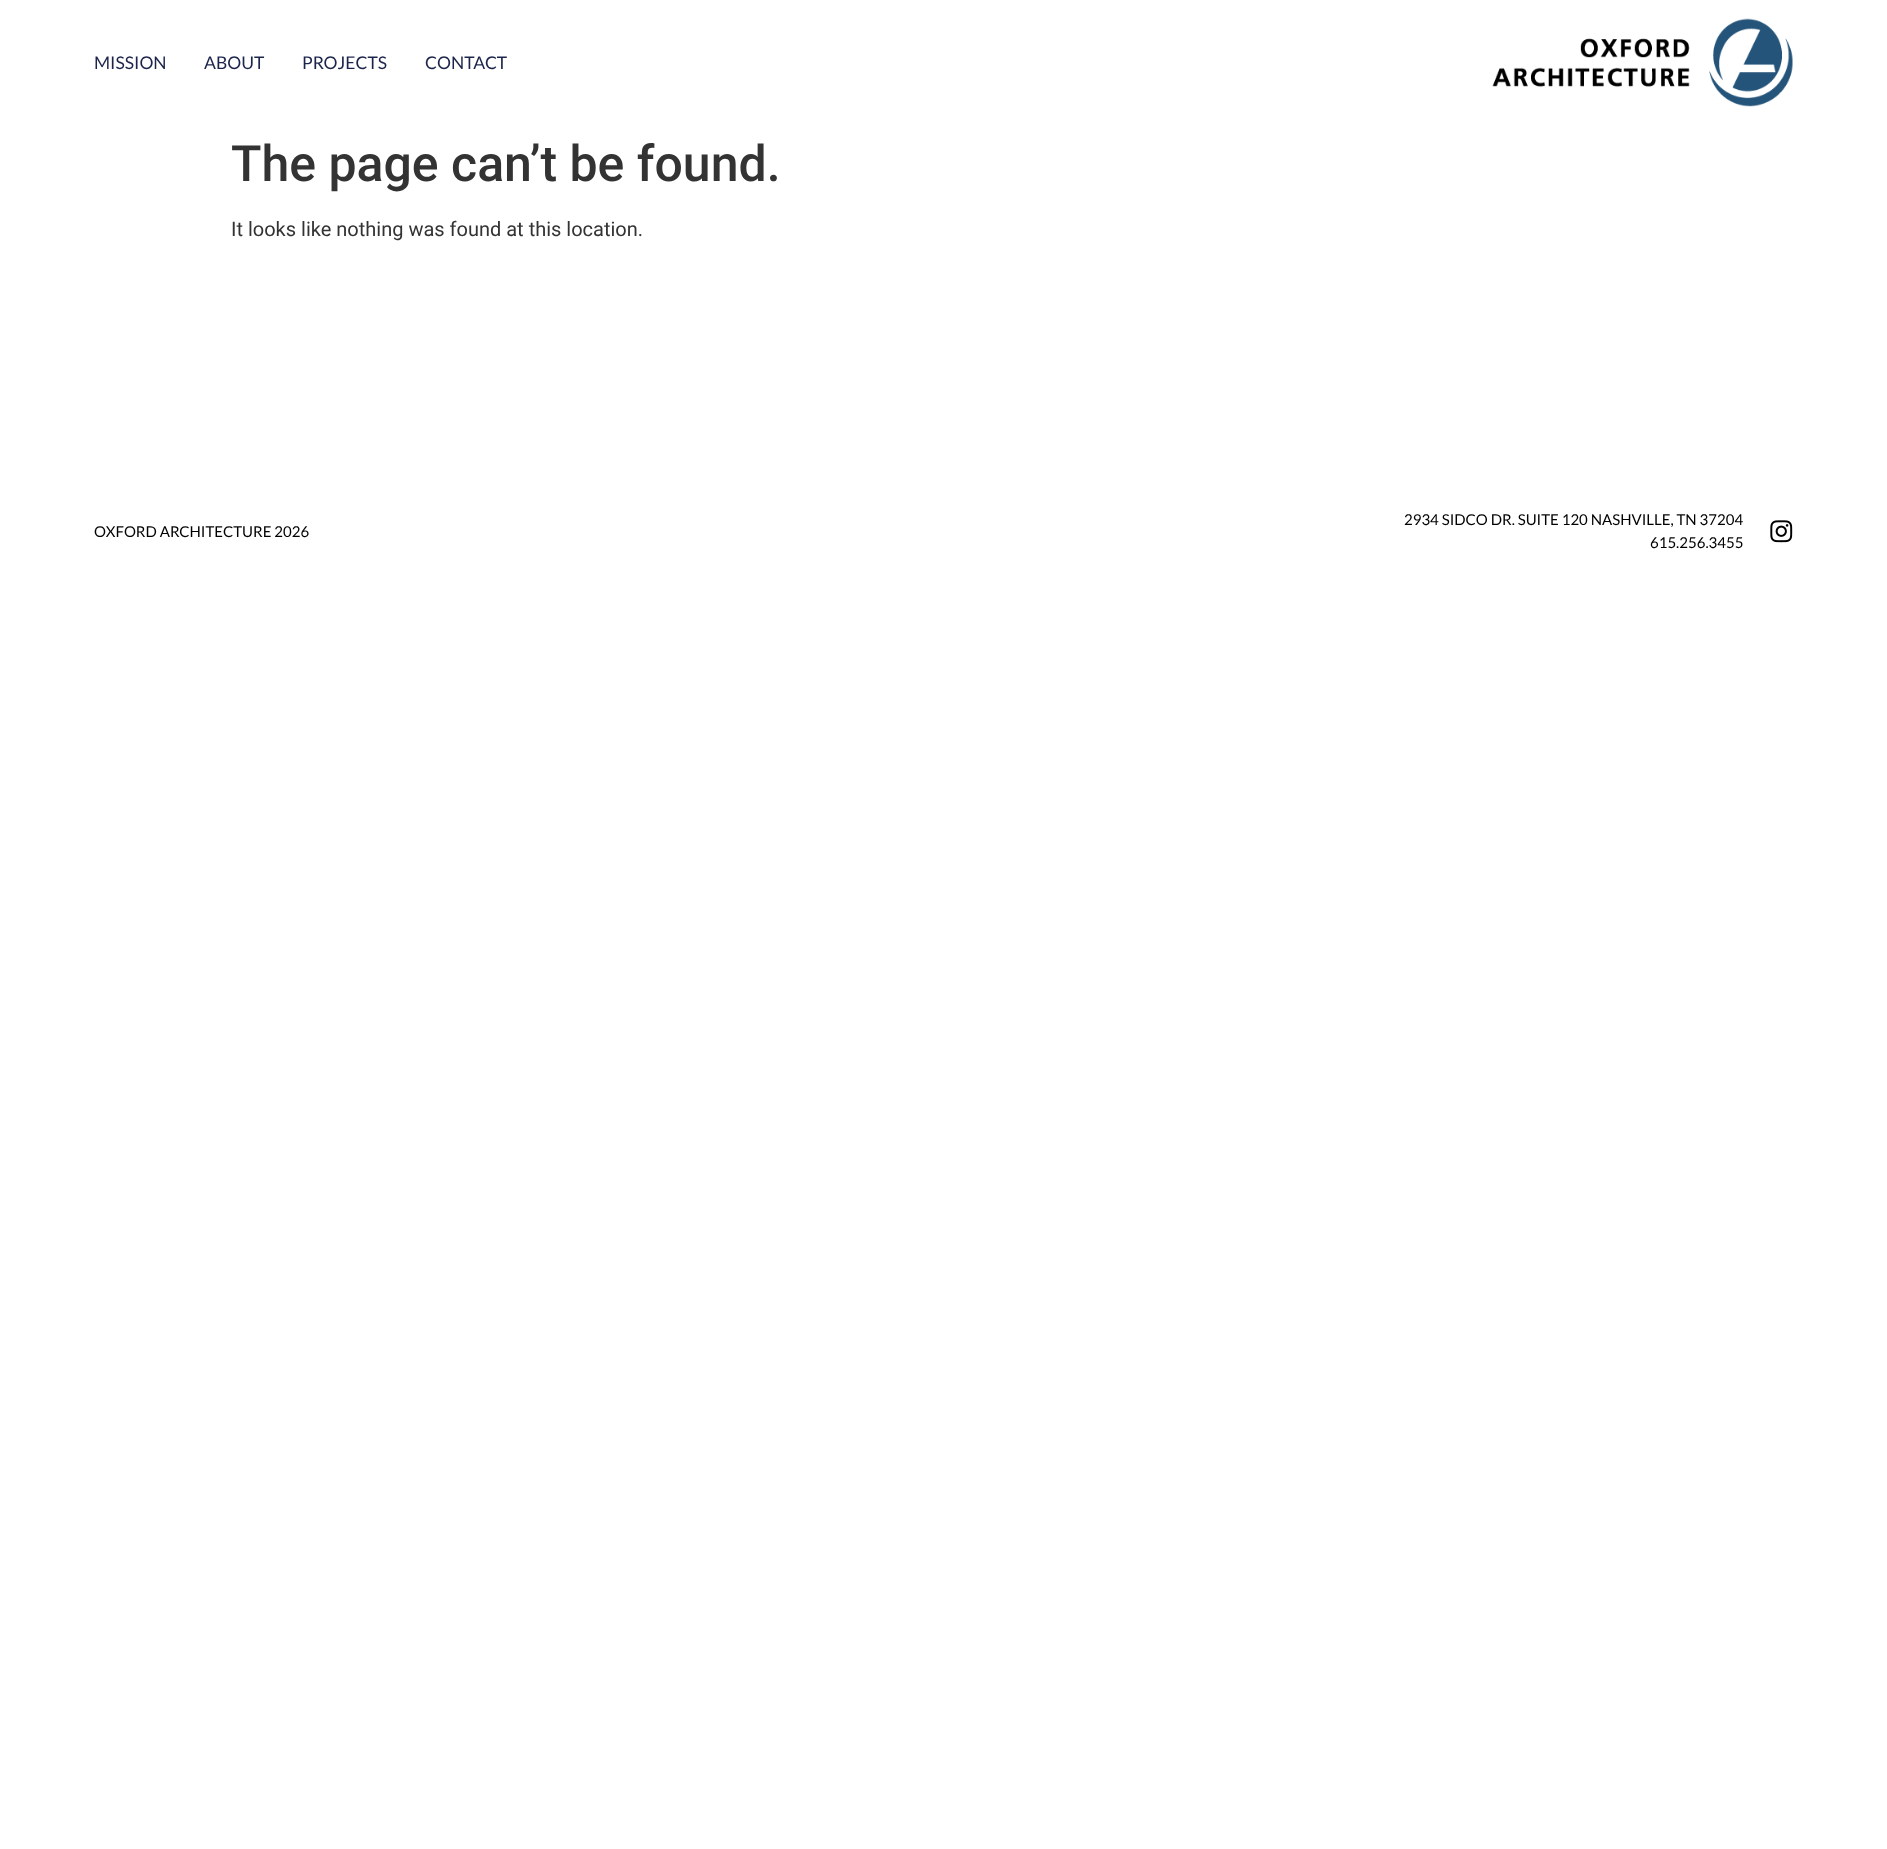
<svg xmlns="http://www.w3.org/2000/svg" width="1887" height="1849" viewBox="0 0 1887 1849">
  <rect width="100%" height="100%" fill="#ffffff"/>
  <text x="94" y="69" font-family="Lato" font-size="17.5" fill="#1c244b">MISSION</text>
  <text x="204" y="69" font-family="Lato" font-size="17.5" fill="#1c244b">ABOUT</text>
  <text x="302" y="69" font-family="Lato" font-size="17.5" fill="#1c244b">PROJECTS</text>
  <text x="425" y="69" font-family="Lato" font-size="17.5" fill="#1c244b">CONTACT</text>
  <image x="1492" y="18" width="301" height="89" href="img1.png"/>
  <text x="231" y="181" font-family="Roboto" font-size="50" font-weight="500" fill="#333333">The page can’t be found.</text>
  <text x="231" y="236" font-family="Roboto" font-size="20" fill="#333333">It looks like nothing was found at this location.</text>
  <text x="94" y="537" font-family="Lato" font-size="15" fill="#000000">OXFORD ARCHITECTURE 2026</text>
  <text x="1404" y="525" font-family="Lato" font-size="15" fill="#000000">2934 SIDCO DR. SUITE 120 NASHVILLE, TN 37204</text>
  <text x="1650" y="548" font-family="Lato" font-size="15" fill="#000000">615.256.3455</text>
  <image x="1770" y="520" width="23" height="23" href="img2.png"/>
</svg>
